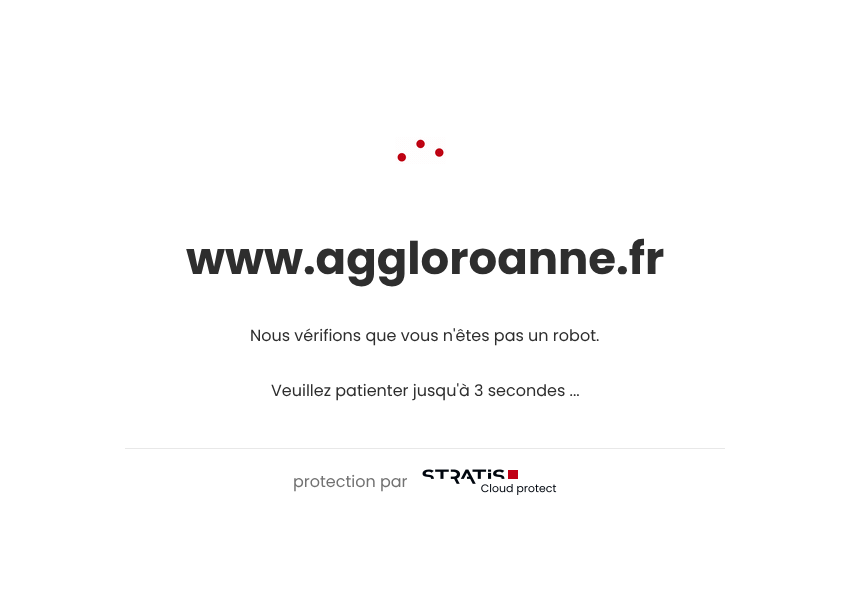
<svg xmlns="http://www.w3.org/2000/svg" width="850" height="601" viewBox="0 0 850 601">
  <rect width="100%" height="100%" fill="#ffffff"/>
  <image x="395" y="137" width="51" height="27" href="img1.png"/>
  <text x="186" y="274" font-family="Poppins" font-size="45" font-weight="bold" fill="#2e2e2e">www.aggloroanne.fr</text>
  <text x="250" y="341" font-family="Poppins" font-size="16" fill="#2e2e2e">Nous vérifions que vous n'êtes pas un robot.</text>
  <text x="271" y="396" font-family="Poppins" font-size="16" fill="#2e2e2e">Veuillez patienter jusqu'à 3 secondes ...</text>
  <rect x="125" y="448" width="600" height="1" fill="#e8e8e8"/>
  <text x="293" y="487" font-family="Poppins" font-size="16" fill="#727272">protection par</text>
  <image x="422" y="469" width="135" height="26" href="img2.png"/>
</svg>
